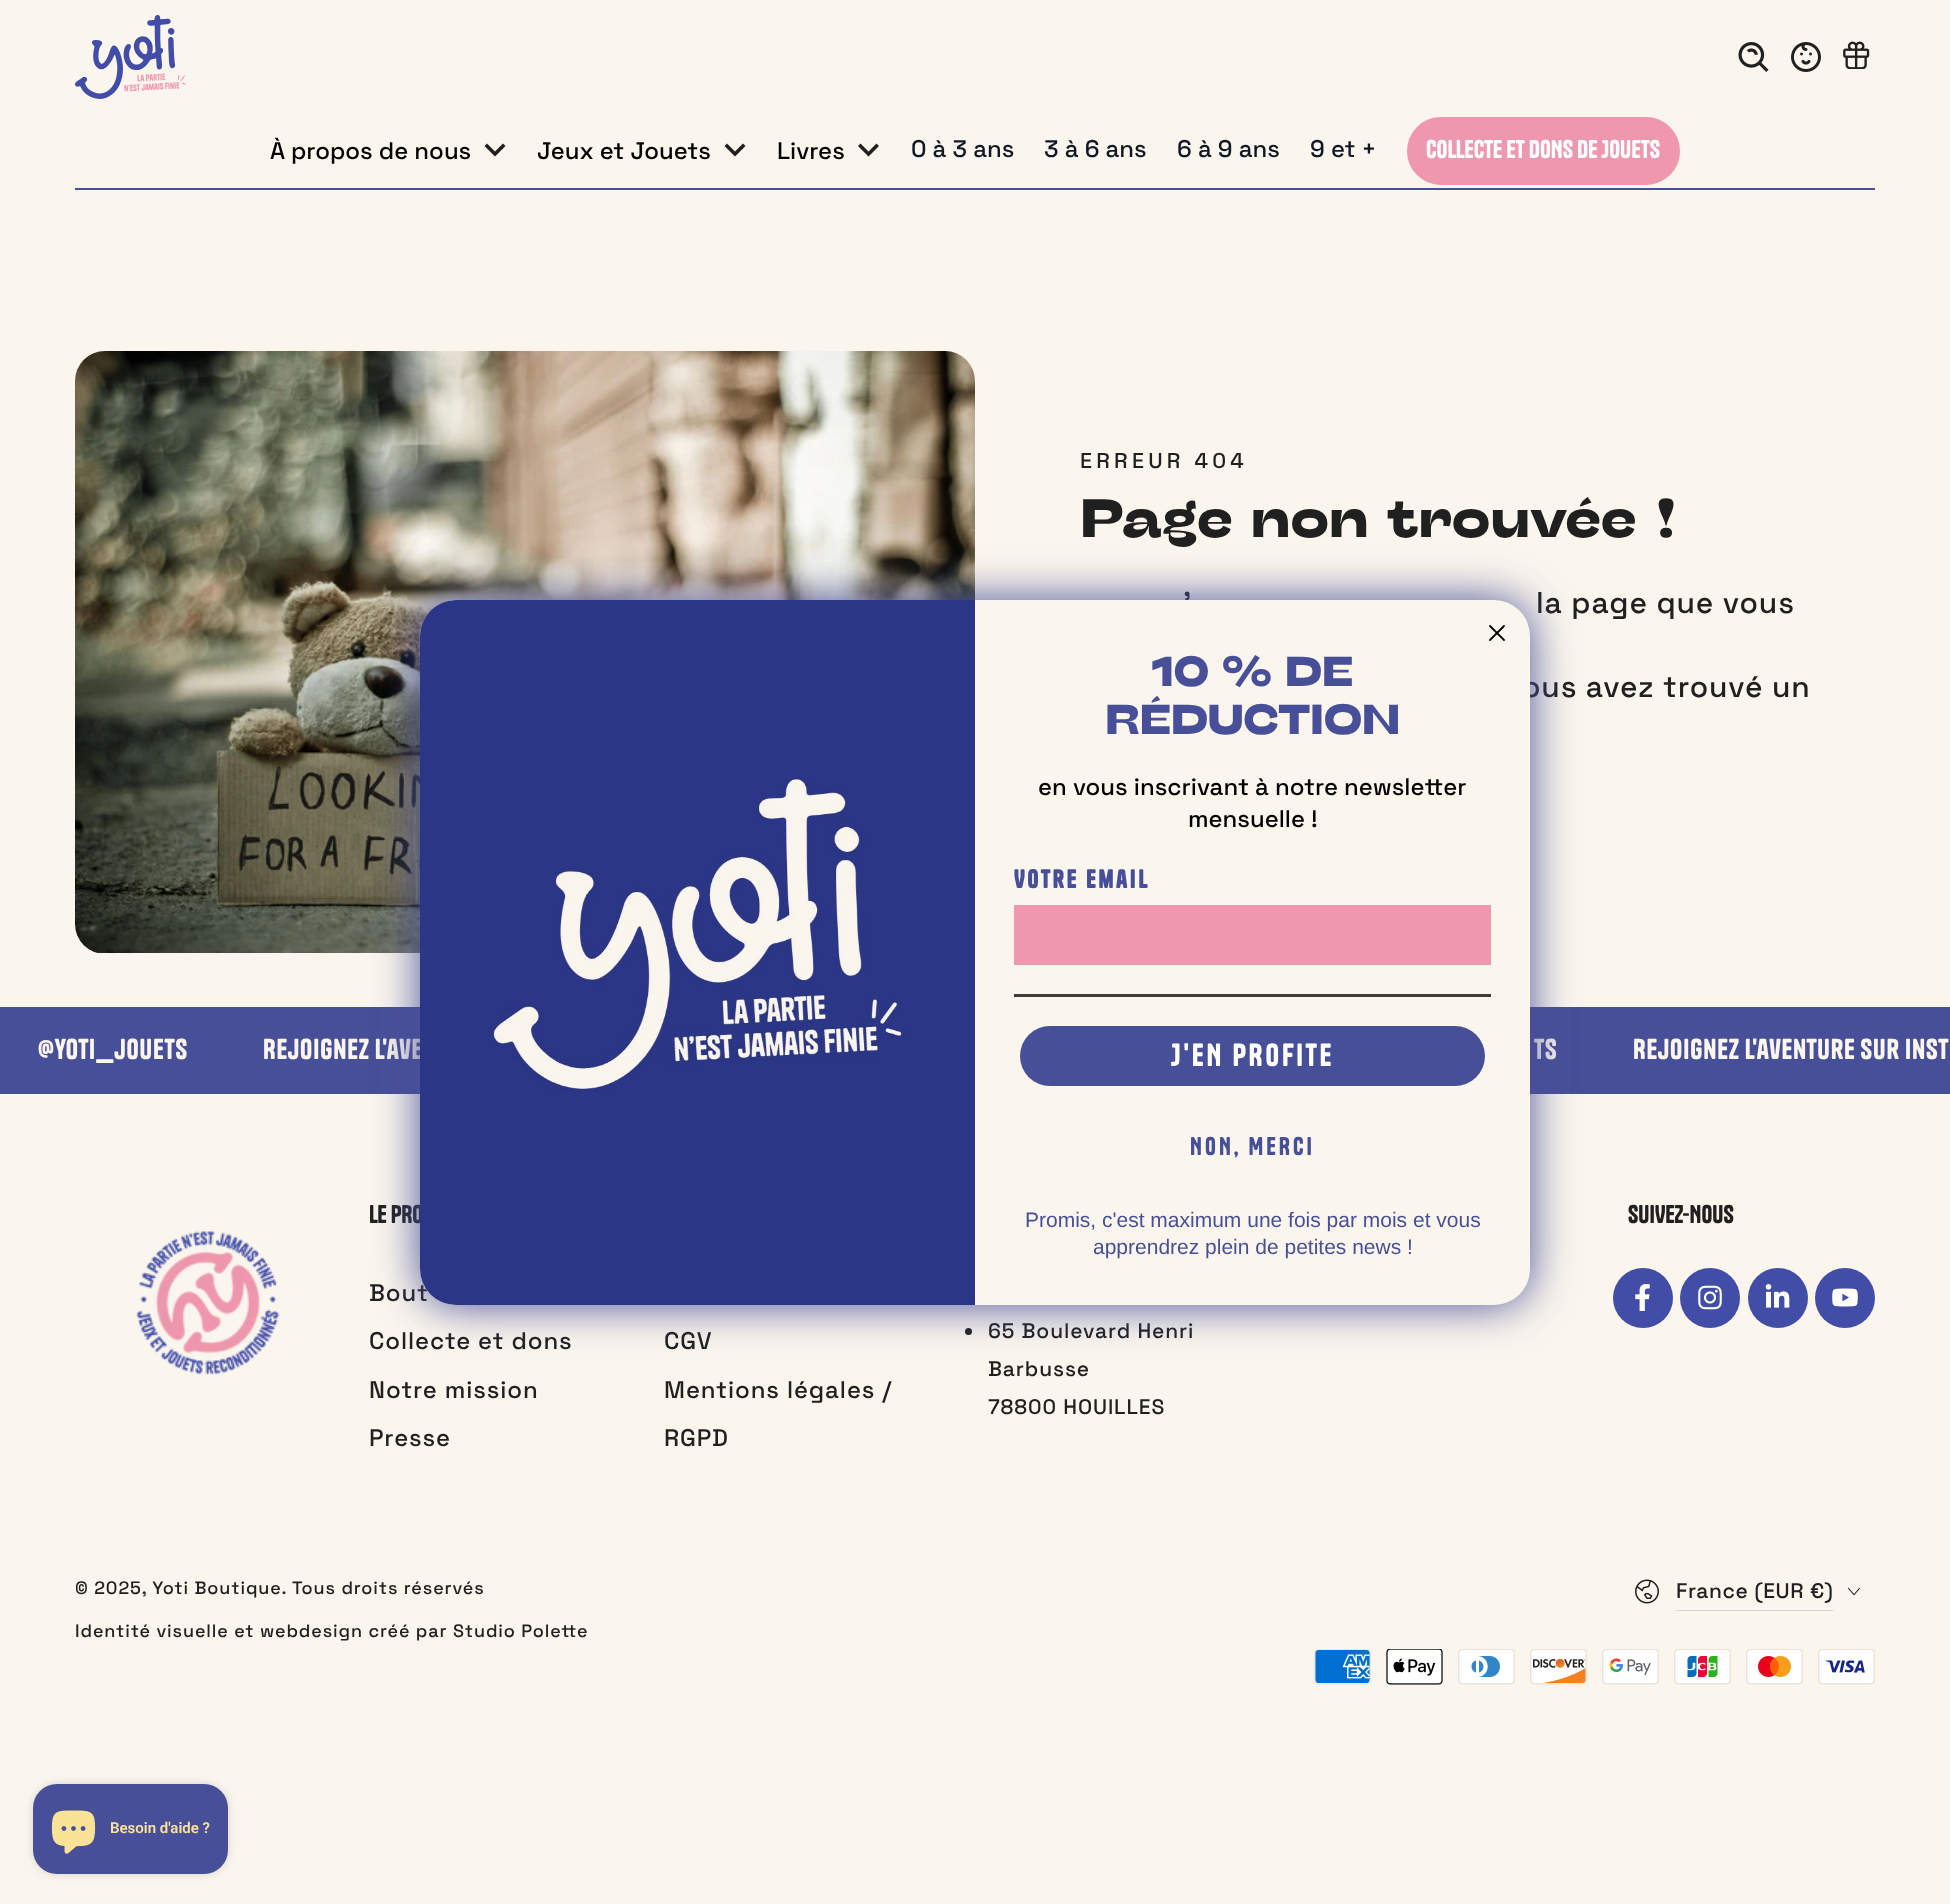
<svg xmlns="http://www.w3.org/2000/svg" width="1950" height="1904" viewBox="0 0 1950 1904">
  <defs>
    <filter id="blur1" x="-50%" y="-200%" width="200%" height="500%"><feGaussianBlur stdDeviation="22.5"/></filter>
    <filter id="blur2" x="-50%" y="-200%" width="200%" height="500%"><feGaussianBlur stdDeviation="4"/></filter>
  </defs>
  <rect width="100%" height="100%" fill="#fbf6ed"/>
  <rect x="75" y="188" width="1800" height="2" fill="#474f98"/>
  <image x="75" y="15" width="111" height="84" href="img1.png"/>
  <image x="1738" y="42" width="31" height="30" href="img2.png"/>
  <image x="1791" y="42" width="30" height="30" href="img3.png"/>
  <image x="1843" y="41" width="27" height="28" href="img4.png"/>
  <text x="270" y="159" font-family="Space Grotesk" font-size="24" font-weight="500" fill="#000000">À propos de nous</text>
  <path d="M487 143.5L495 151.5L503 143.5L505.5 146L495 156.5L484.5 146Z" fill="#202020"/>
  <text x="537" y="159" font-family="Space Grotesk" font-size="24" font-weight="500" fill="#000000">Jeux et Jouets</text>
  <path d="M727 143.5L735 151.5L743 143.5L745.5 146L735 156.5L724.5 146Z" fill="#202020"/>
  <text x="777" y="159" font-family="Space Grotesk" font-size="24" font-weight="500" fill="#000000">Livres</text>
  <path d="M860.5 143.5L868.5 151.5L876.5 143.5L879 146L868.5 156.5L858 146Z" fill="#202020"/>
  <text x="911" y="157" font-family="Space Grotesk" font-size="24" font-weight="500" fill="#101828">0 à 3 ans</text>
  <text x="1044" y="157" font-family="Space Grotesk" font-size="24" font-weight="500" fill="#101828">3 à 6 ans</text>
  <text x="1177" y="157" font-family="Space Grotesk" font-size="24" font-weight="500" fill="#101828">6 à 9 ans</text>
  <text x="1310" y="157" font-family="Space Grotesk" font-size="24" font-weight="500" fill="#101828">9 et +</text>
  <rect x="1408.5" y="118.5" width="270" height="65" rx="32.5" fill="#ee97ae" stroke="#ee97ae" stroke-width="3"/>
  <text x="1426" y="158" font-family="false" font-size="24" fill="#ffffff">COLLECTE ET DONS DE JOUETS</text>
  <image x="75" y="351" width="900" height="602" href="img5.png"/>
  <text x="1080" y="468" font-family="Space Grotesk" font-size="21.5" font-weight="500" letter-spacing="4.25" fill="#202020">ERREUR 404</text>
  <text x="1080" y="537" font-family="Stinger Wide" font-size="54" font-weight="bold" letter-spacing="0.8" fill="#202020">Page non trouvée !</text>
  <text x="1183" y="613" font-family="Space Grotesk" font-size="30" font-weight="500" letter-spacing="0.9" fill="#202020">'</text>
  <text x="1536" y="613" font-family="Space Grotesk" font-size="30" font-weight="500" letter-spacing="0.9" fill="#202020">la page que vous</text>
  <text x="1522" y="697" font-family="Space Grotesk" font-size="30" font-weight="500" letter-spacing="0.9" fill="#202020">ous avez trouvé un</text>
  <rect x="0" y="1007" width="1950" height="87" fill="#474f98"/>
  <text x="38" y="1059" font-family="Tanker" font-size="27" letter-spacing="0.8" fill="#fbf6ed">@yoti_jouets</text>
  <text x="263" y="1059" font-family="Tanker" font-size="27" letter-spacing="0.8" fill="#fbf6ed">Rejoignez l'ave</text>
  <text x="1534" y="1059" font-family="Tanker" font-size="27" letter-spacing="0.8" fill="#fbf6ed">ts</text>
  <text x="1633" y="1059" font-family="Tanker" font-size="27" letter-spacing="0.8" fill="#fbf6ed">Rejoignez l'aventure sur inst</text>
  <image x="136" y="1231" width="144" height="144" href="img6.png"/>
  <text x="369" y="1223" font-family="Tanker" font-size="24" fill="#202020">LE PRO</text>
  <text x="369" y="1301" font-family="Space Grotesk" font-size="24" font-weight="500" letter-spacing="0.9" fill="#202020">Bout</text>
  <text x="369" y="1349" font-family="Space Grotesk" font-size="24" font-weight="500" letter-spacing="0.9" fill="#202020">Collecte et dons</text>
  <text x="369" y="1398" font-family="Space Grotesk" font-size="24" font-weight="500" letter-spacing="0.9" fill="#202020">Notre mission</text>
  <text x="369" y="1446" font-family="Space Grotesk" font-size="24" font-weight="500" letter-spacing="0.9" fill="#202020">Presse</text>
  <text x="664" y="1349" font-family="Space Grotesk" font-size="24" font-weight="500" letter-spacing="0.9" fill="#202020">CGV</text>
  <text x="664" y="1398" font-family="Space Grotesk" font-size="24" font-weight="500" letter-spacing="0.9" fill="#202020">Mentions légales /</text>
  <text x="664" y="1446" font-family="Space Grotesk" font-size="24" font-weight="500" letter-spacing="0.9" fill="#202020">RGPD</text>
  <circle cx="968.5" cy="1331.5" r="3.5" fill="#202020"/>
  <text x="988" y="1338" font-family="Space Grotesk" font-size="21" font-weight="500" letter-spacing="0.9" fill="#202020">65 Boulevard Henri</text>
  <text x="988" y="1376" font-family="Space Grotesk" font-size="21" font-weight="500" letter-spacing="0.9" fill="#202020">Barbusse</text>
  <text x="988" y="1414" font-family="Space Grotesk" font-size="21" font-weight="500" letter-spacing="0.9" fill="#202020">78800 HOUILLES</text>
  <text x="1628" y="1223" font-family="Tanker" font-size="24" fill="#202020">SUIVEZ-NOUS</text>
  <circle cx="1643" cy="1298" r="30" fill="#424da8"/>
  <image x="1635" y="1284" width="15" height="27" href="img7.png"/>
  <circle cx="1710" cy="1298" r="30" fill="#424da8"/>
  <image x="1698" y="1285" width="24" height="25" href="img8.png"/>
  <circle cx="1778" cy="1298" r="30" fill="#424da8"/>
  <image x="1765" y="1284" width="25" height="24" href="img9.png"/>
  <circle cx="1845" cy="1298" r="30" fill="#424da8"/>
  <image x="1832" y="1288" width="26" height="19" href="img10.png"/>
  <text x="75" y="1594" font-family="Space Grotesk" font-size="18" font-weight="500" letter-spacing="0.9" fill="#202020">© 2025, Yoti Boutique. Tous droits réservés</text>
  <text x="75" y="1637" font-family="Space Grotesk" font-size="18" font-weight="500" letter-spacing="0.9" fill="#202020">Identité visuelle et webdesign créé par Studio Polette</text>
  <image x="1635" y="1579" width="24" height="25" href="img11.png"/>
  <rect x="1676" y="1610" width="157" height="1" fill="#d2d5d9"/>
  <text x="1676" y="1598" font-family="Space Grotesk" font-size="21" font-weight="500" letter-spacing="0.6" fill="#202020">France (EUR €)</text>
  <image x="1848" y="1587" width="12" height="9" href="img12.png"/>
  <image x="1314" y="1649" width="57" height="36" href="img13.png"/>
  <image x="1386" y="1649" width="57" height="36" href="img14.png"/>
  <image x="1458" y="1649" width="57" height="36" href="img15.png"/>
  <image x="1530" y="1649" width="57" height="36" href="img16.png"/>
  <image x="1602" y="1649" width="57" height="36" href="img17.png"/>
  <image x="1674" y="1649" width="57" height="36" href="img18.png"/>
  <image x="1746" y="1649" width="57" height="36" href="img19.png"/>
  <image x="1818" y="1649" width="57" height="36" href="img20.png"/>
  <rect x="420" y="600" width="1110" height="705" rx="36" fill="#474f98" filter="url(#blur1)"/>
  <rect x="420" y="600" width="1110" height="705" rx="36" fill="#fbf6ed"/>
  <path d="M1490 626L1504 640M1490 640L1504 626Z" fill="none" stroke="#000000" stroke-width="1.8" stroke-linecap="round" stroke-linejoin="round"/>
  <image x="420" y="600" width="555" height="705" href="img21.png"/>
  <text x="1152" y="686" font-family="'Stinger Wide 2'" font-size="42" font-weight="bold" fill="#474f98">10 % DE</text>
  <text x="1105" y="734" font-family="'Stinger Wide 2'" font-size="42" font-weight="bold" fill="#474f98">RÉDUCTION</text>
  <text x="1038" y="795" font-family="'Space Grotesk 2'" font-size="24" font-weight="500" fill="#000000">en vous inscrivant à notre newsletter</text>
  <text x="1188" y="827" font-family="'Space Grotesk 2'" font-size="24" font-weight="500" fill="#000000">mensuelle !</text>
  <text x="1014" y="888" font-family="false" font-size="24" font-weight="bold" letter-spacing="3" fill="#474f98">Votre email</text>
  <rect x="1014" y="905" width="477" height="60" fill="#ee97ae"/>
  <rect x="1014" y="994" width="477" height="3" fill="#3f3e3b"/>
  <rect x="1020" y="1026" width="465" height="60" rx="30" fill="#474f98"/>
  <text x="1171" y="1066" font-family="false" font-size="30" letter-spacing="3" fill="#ffffff">J'EN PROFITE</text>
  <text x="1190" y="1155" font-family="false" font-size="24" letter-spacing="3" fill="#474f98">NON, MERCI</text>
  <text x="1025" y="1227" font-family="Liberation Sans" font-size="21" fill="#474f98">Promis, c'est maximum une fois par mois et vous</text>
  <text x="1093" y="1254" font-family="Liberation Sans" font-size="21" fill="#474f98">apprendrez plein de petites news !</text>
  <rect x="33" y="1784" width="195" height="90" rx="24" fill="#000000" fill-opacity="0.15" filter="url(#blur2)"/>
  <rect x="33" y="1784" width="195" height="90" rx="24" fill="#474f98"/>
  <image x="51" y="1810" width="45" height="44" href="img22.png"/>
  <text x="110" y="1833" font-family="Roboto" font-size="15" font-weight="600" fill="#fae396">Besoin d'aide ?</text>
</svg>
